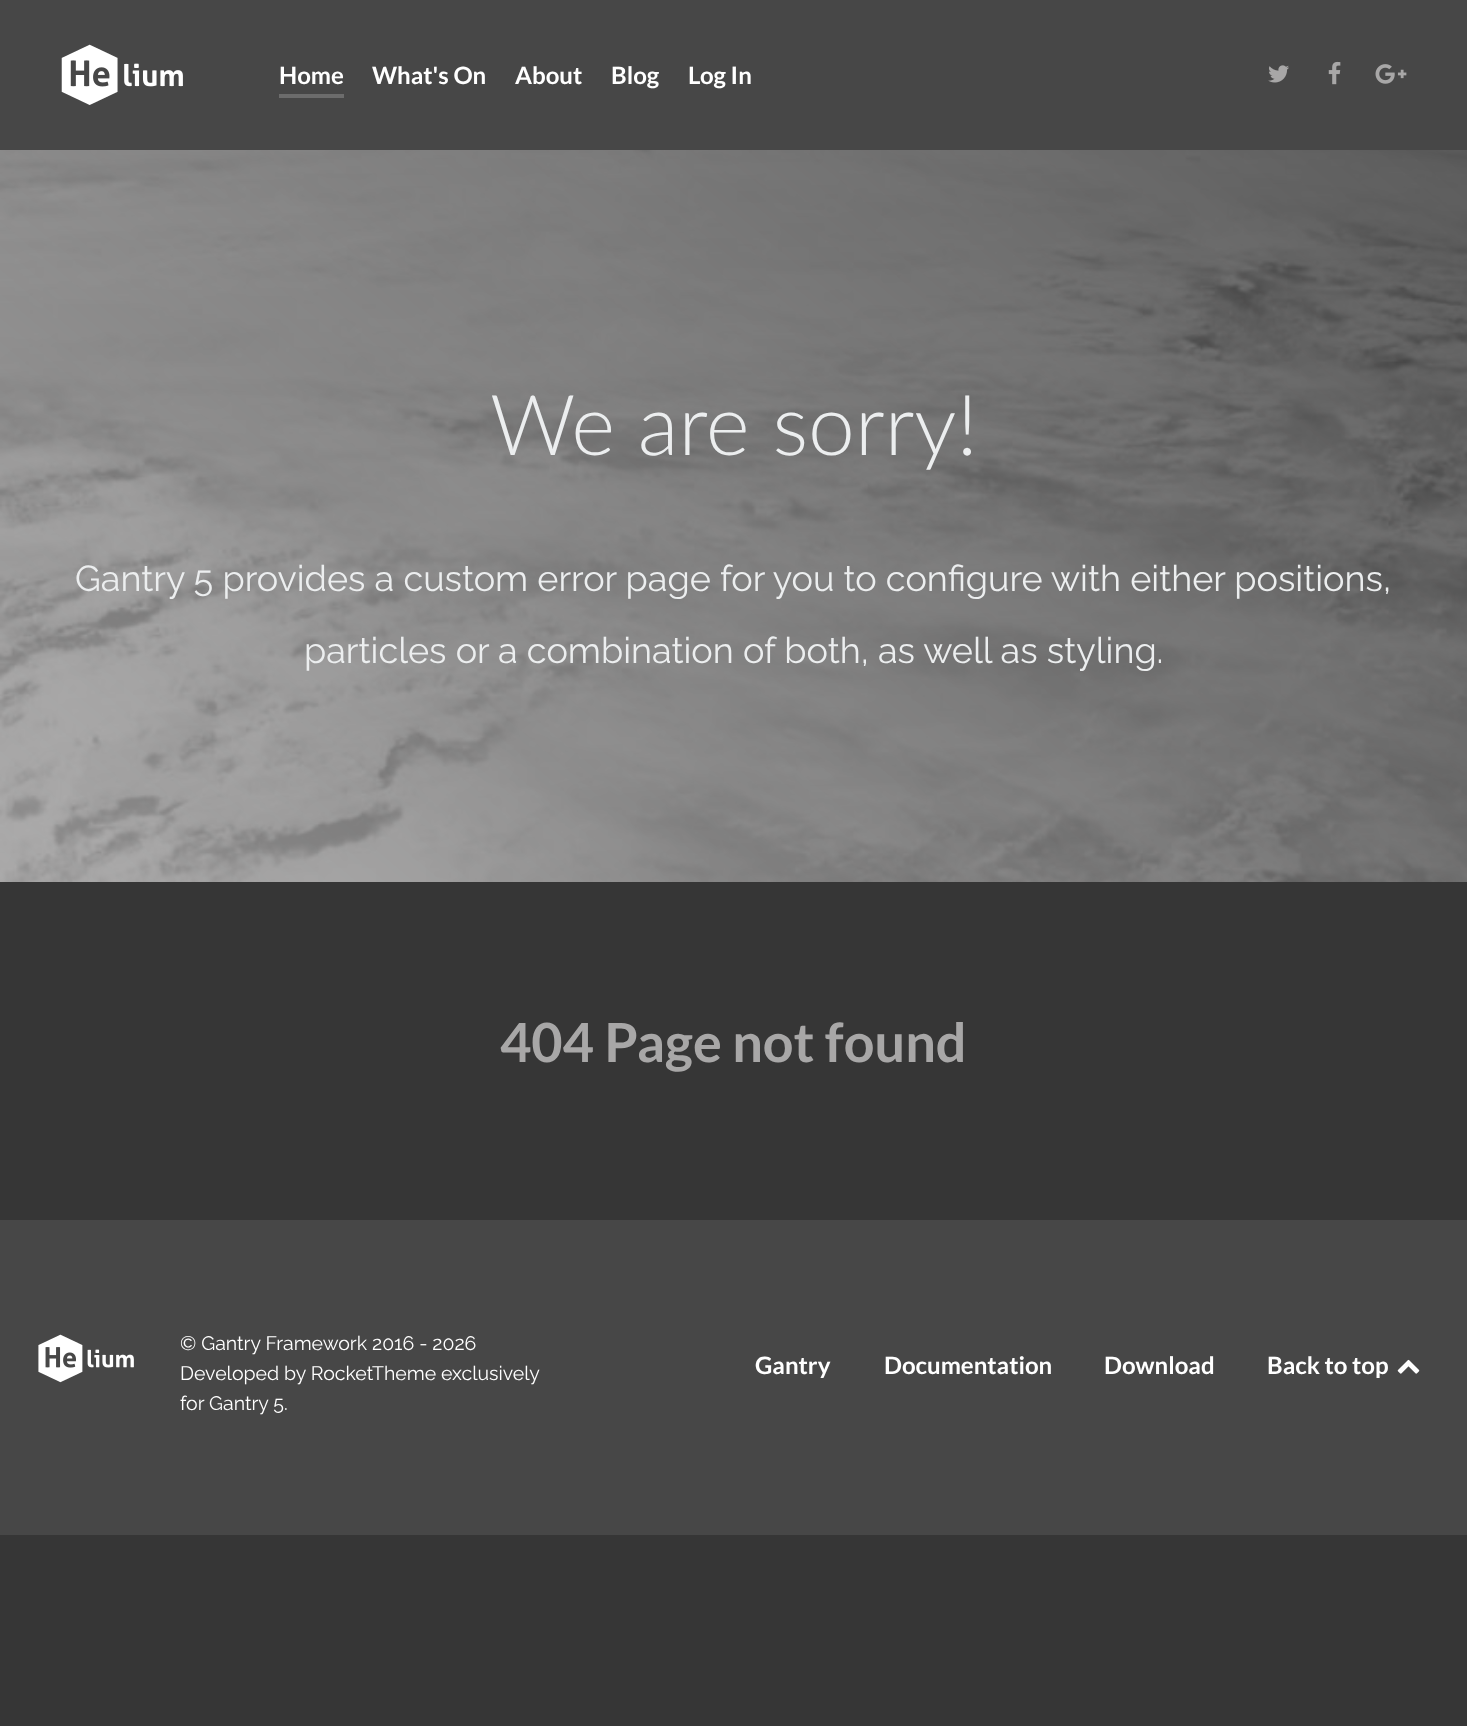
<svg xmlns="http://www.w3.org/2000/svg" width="1467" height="1726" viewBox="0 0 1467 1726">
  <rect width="100%" height="100%" fill="#363636"/>
  <rect x="0" y="0" width="1467" height="150" fill="#474747"/>
  <image x="61" y="44" width="122" height="61" href="img1.png"/>
  <path d="M279 94V98H344V65V94Z" fill="#6c6c6c"/>
  <text x="279" y="84" font-family="Lato" font-size="24" font-weight="bold" fill="#ffffff">Home</text>
  <text x="372" y="84" font-family="Lato" font-size="24" font-weight="bold" fill="#ffffff">What's On</text>
  <text x="515" y="84" font-family="Lato" font-size="24" font-weight="bold" fill="#ffffff">About</text>
  <text x="611" y="84" font-family="Lato" font-size="24" font-weight="bold" fill="#ffffff">Blog</text>
  <text x="688" y="84" font-family="Lato" font-size="24" font-weight="bold" fill="#ffffff">Log In</text>
  <image x="1268" y="65" width="21" height="18" href="img2.png"/>
  <image x="1328" y="61" width="13" height="24" href="img3.png"/>
  <image x="1375" y="64" width="32" height="20" href="img4.png"/>
  <image x="0" y="150" width="1467" height="732" href="img5.png"/>
  <text x="490" y="455" font-family="Lato" font-size="84" font-weight="300" fill="#eceeef">We are sorry!</text>
  <text x="75" y="591" font-family="Raleway" font-size="36" fill="#eceeef">Gantry 5 provides a custom error page for you to configure with either positions,</text>
  <text x="304" y="663" font-family="Raleway" font-size="36" fill="#eceeef">particles or a combination of both, as well as styling.</text>
  <text x="500" y="1062" font-family="Lato" font-size="54" font-weight="bold" fill="#a8a7a7">404 Page not found</text>
  <rect x="0" y="1220" width="1467" height="315" fill="#474747"/>
  <image x="38" y="1334" width="96" height="49" href="img6.png"/>
  <text x="180" y="1350" font-family="Raleway" font-size="19.5" fill="#ffffff">© Gantry Framework 2016 - 2026</text>
  <text x="180" y="1380" font-family="Raleway" font-size="19.5" fill="#ffffff">Developed by RocketTheme exclusively</text>
  <text x="180" y="1410" font-family="Raleway" font-size="19.5" fill="#ffffff">for Gantry 5.</text>
  <text x="755" y="1374" font-family="Lato" font-size="24" font-weight="bold" fill="#ffffff">Gantry</text>
  <text x="884" y="1374" font-family="Lato" font-size="24" font-weight="bold" fill="#ffffff">Documentation</text>
  <text x="1104" y="1374" font-family="Lato" font-size="24" font-weight="bold" fill="#ffffff">Download</text>
  <text x="1267" y="1374" font-family="Lato" font-size="24" font-weight="bold" fill="#ffffff">Back to top</text>
  <image x="1397" y="1359" width="23" height="15" href="img7.png"/>
</svg>
